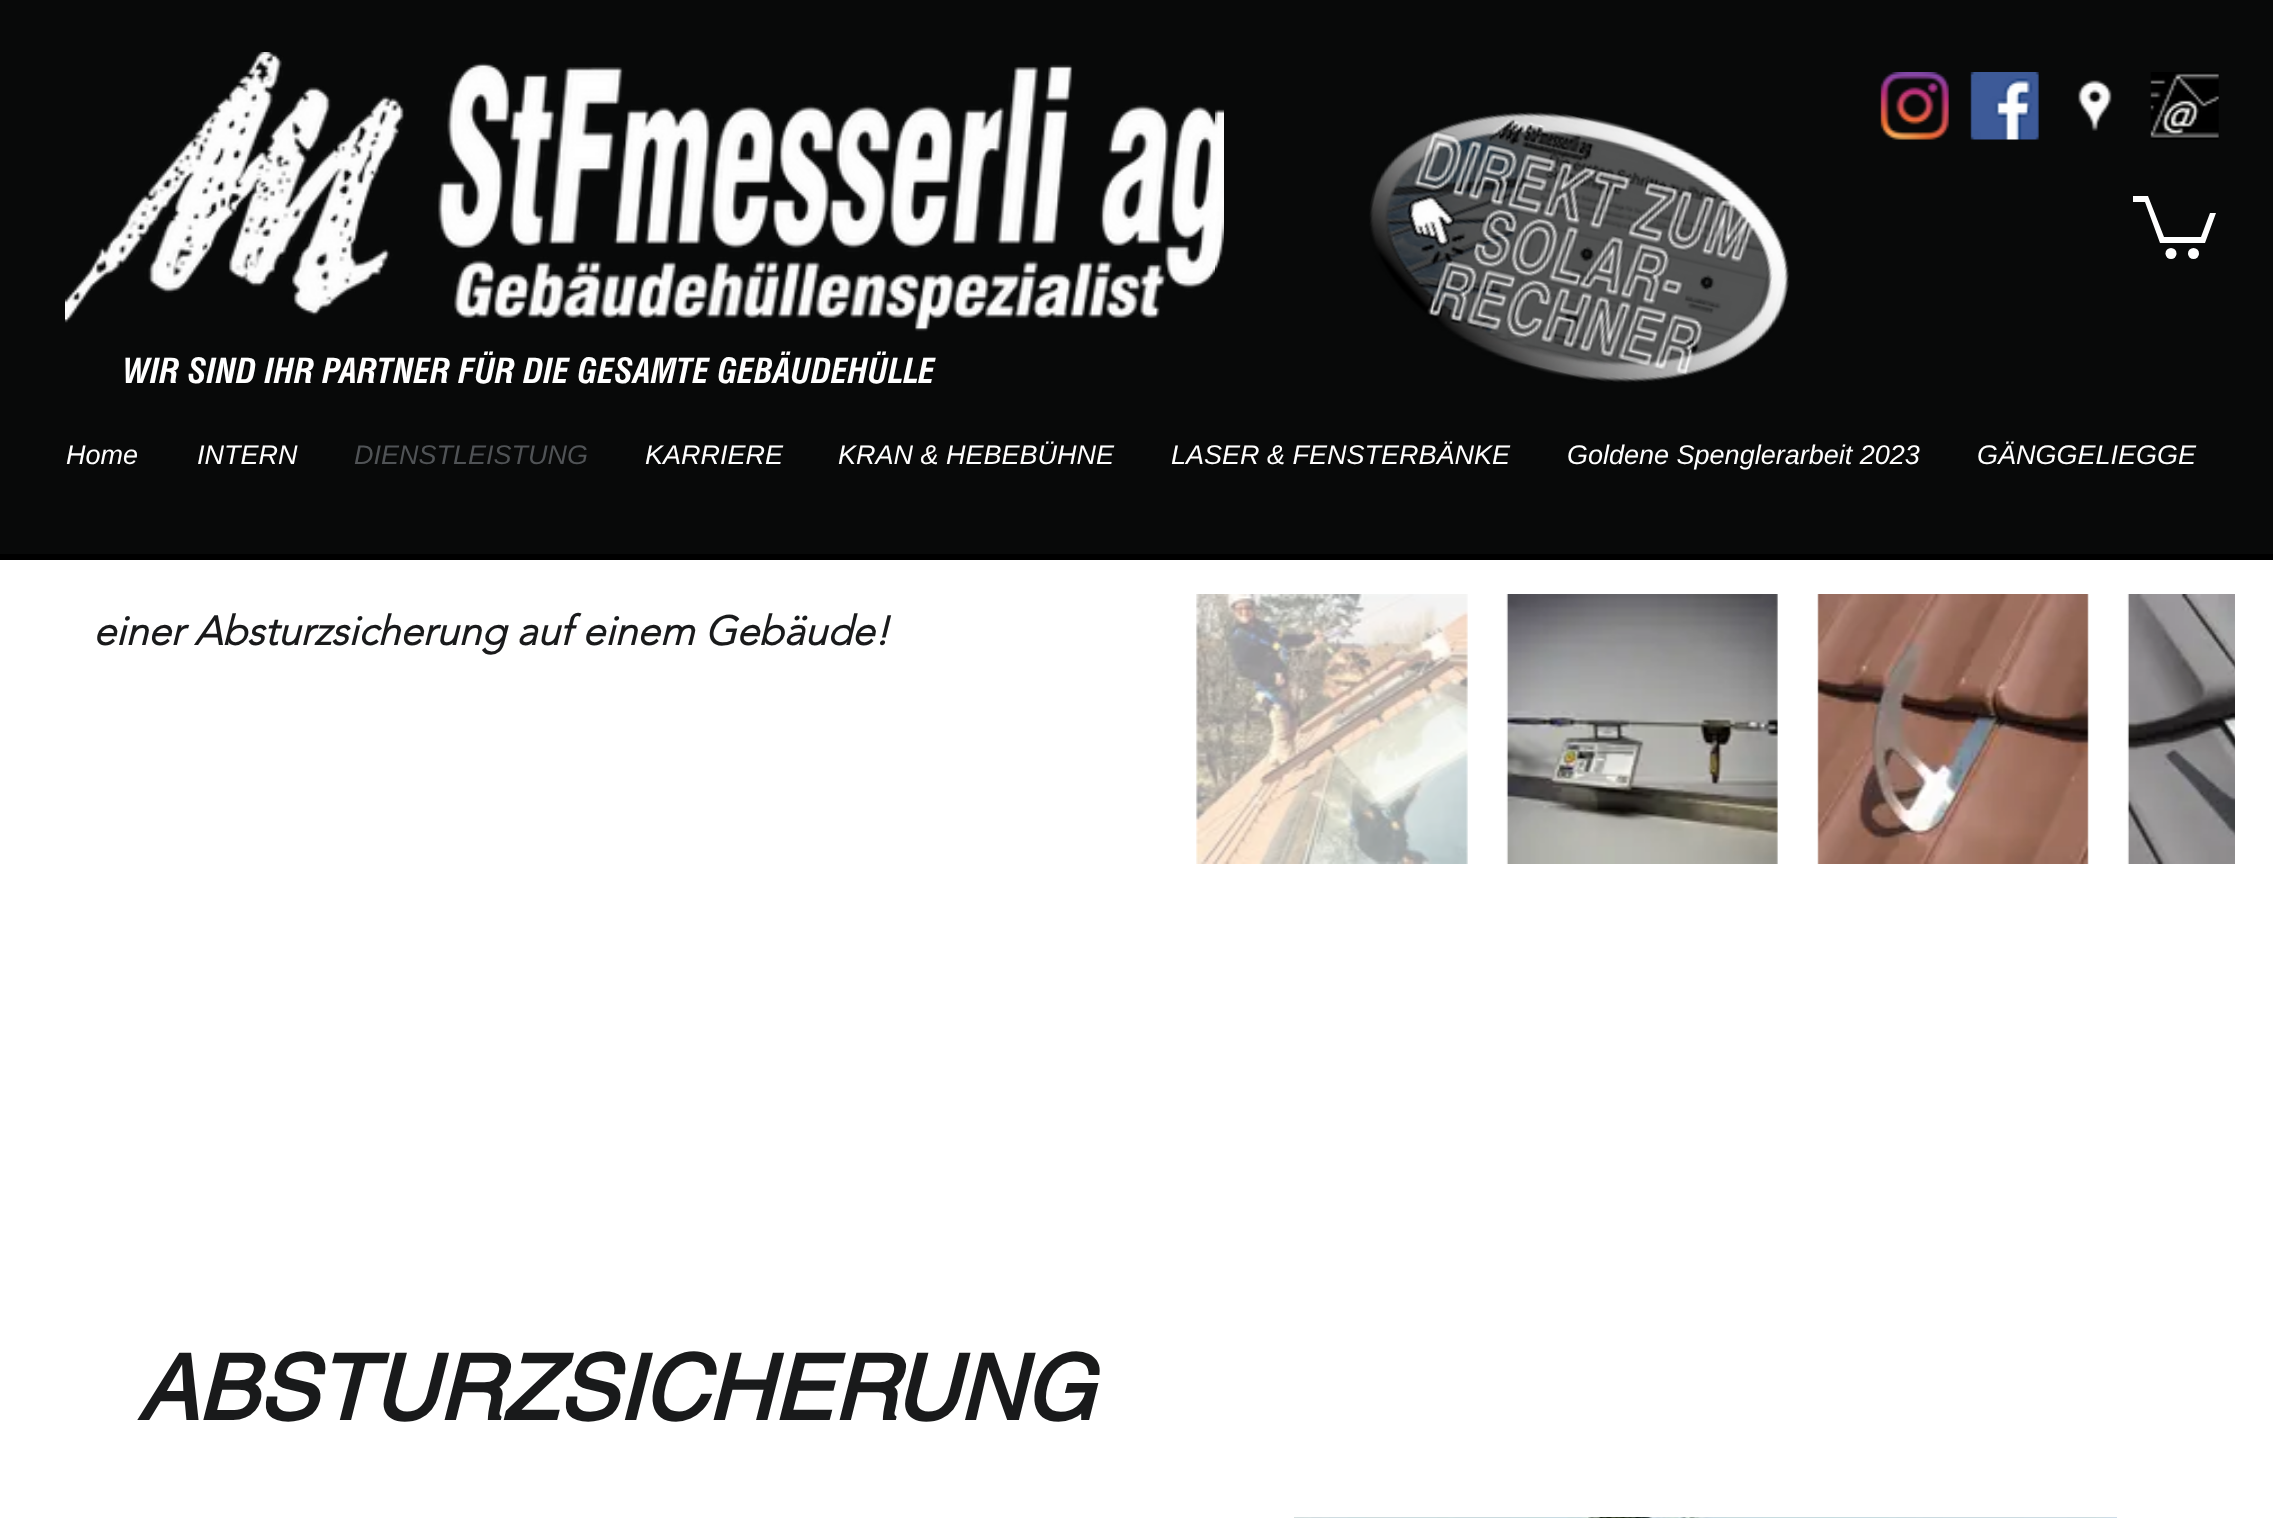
<svg xmlns="http://www.w3.org/2000/svg" width="2273" height="1518" viewBox="0 0 2273 1518">
  <rect width="100%" height="100%" fill="#ffffff"/>
  <rect x="0" y="0" width="2273" height="554" fill="#080909"/>
  <image x="65" y="52" width="1159" height="280" href="img1.png"/>
  <image x="1369" y="112" width="421" height="271" href="img2.png"/>
  <image x="1880" y="72" width="69" height="68" href="img3.png"/>
  <image x="1970" y="72" width="69" height="68" href="img4.png"/>
  <image x="2078" y="80" width="34" height="51" href="img5.png"/>
  <image x="2150" y="72" width="69" height="68" href="img6.png"/>
  <path d="M2216 213L2205 243H2160L2145 202H2133V196H2148L2164 237H2201L2210 213" fill="#ffffff"/>
  <circle cx="2193.5" cy="253.5" r="5.5" fill="#ffffff"/>
  <circle cx="2171" cy="253.5" r="5.5" fill="#ffffff"/>
  <text x="123" y="383" font-family="'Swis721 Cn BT'" font-size="33.75" font-weight="bold" font-style="italic" fill="#ffffff">WIR SIND IHR PARTNER FÜR DIE GESAMTE GEBÄUDEHÜLLE</text>
  <text x="66" y="464" font-family="Liberation Sans" font-size="27" font-style="italic" fill="#ffffff">Home</text>
  <text x="197" y="464" font-family="Liberation Sans" font-size="27" font-style="italic" fill="#ffffff">INTERN</text>
  <text x="354" y="464" font-family="Liberation Sans" font-size="27" font-style="italic" fill="#505356">DIENSTLEISTUNG</text>
  <text x="645" y="464" font-family="Liberation Sans" font-size="27" font-style="italic" fill="#ffffff">KARRIERE</text>
  <text x="838" y="464" font-family="Liberation Sans" font-size="27" font-style="italic" fill="#ffffff">KRAN &amp; HEBEBÜHNE</text>
  <text x="1171" y="464" font-family="Liberation Sans" font-size="27" font-style="italic" fill="#ffffff">LASER &amp; FENSTERBÄNKE</text>
  <text x="1567" y="464" font-family="Liberation Sans" font-size="27" font-style="italic" fill="#ffffff">Goldene Spenglerarbeit 2023</text>
  <text x="1977" y="464" font-family="Liberation Sans" font-size="27" font-style="italic" fill="#ffffff">GÄNGGELIEGGE</text>
  <rect x="0" y="554" width="2273" height="6" fill="#000000"/>
  <text x="93" y="645" font-family="'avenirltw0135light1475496'" font-size="40.5" font-weight="bold" font-style="italic" fill="#191a1b">einer Absturzsicherung auf einem Gebäude!</text>
  <image x="1196" y="594" width="272" height="270" href="img7.png"/>
  <image x="1506" y="594" width="272" height="270" href="img8.png"/>
  <image x="1817" y="594" width="272" height="270" href="img9.png"/>
  <image x="2127" y="594" width="108" height="270" href="img10.png"/>
  <text x="137" y="1420" font-family="helvetica" font-size="90" font-weight="bold" font-style="italic" fill="#191a1b">ABSTURZSICHERUNG</text>
  <image x="1294" y="1517" width="823" height="1" href="img11.png"/>
</svg>
